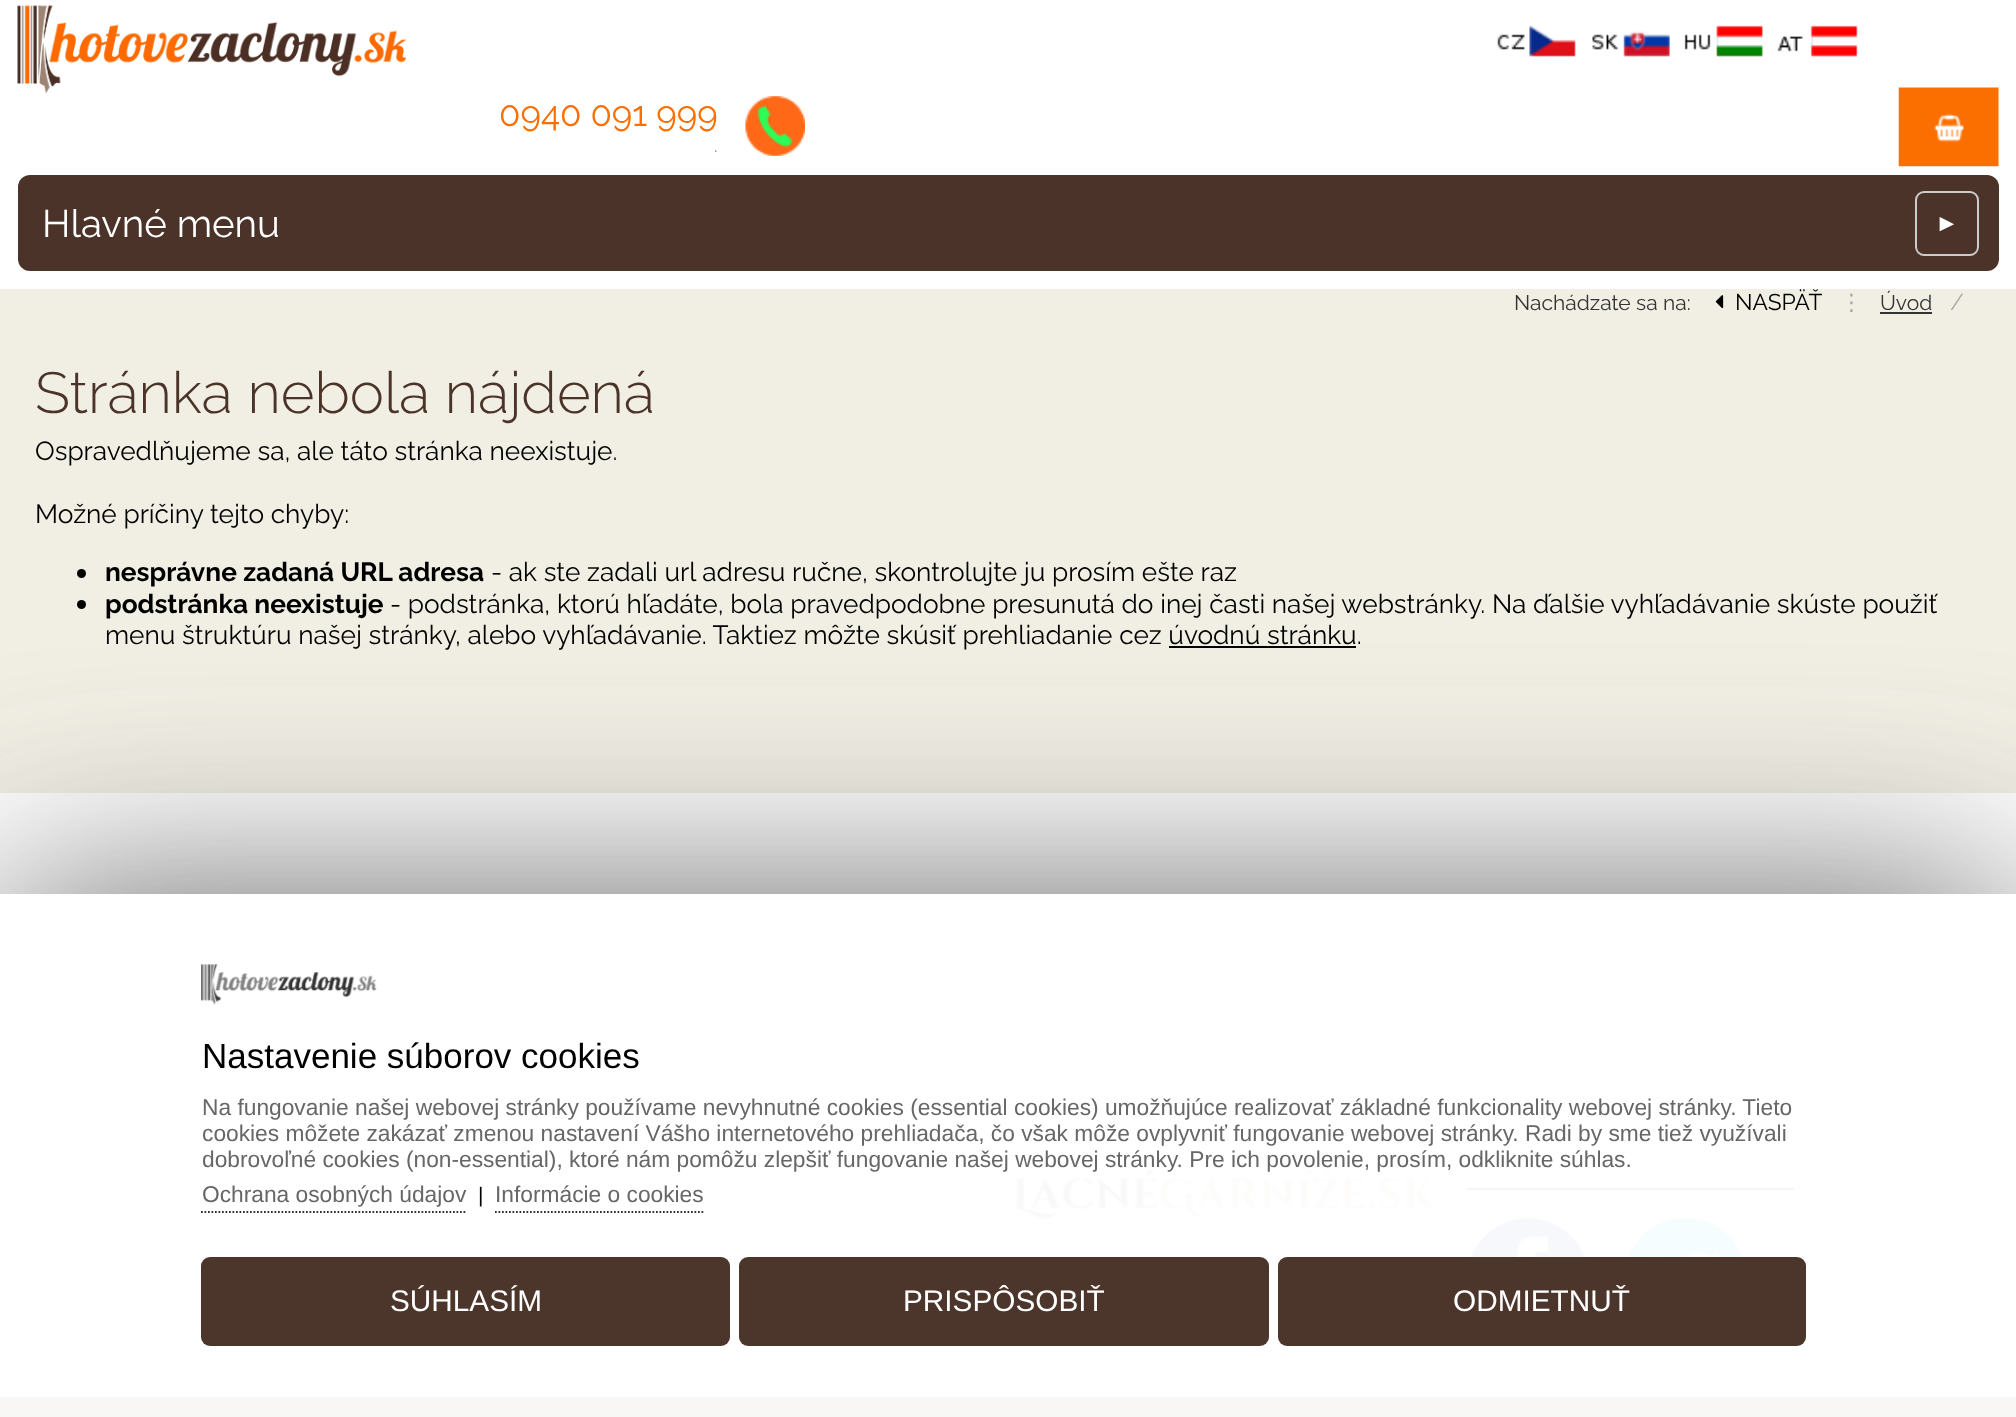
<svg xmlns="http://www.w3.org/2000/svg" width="2016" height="1417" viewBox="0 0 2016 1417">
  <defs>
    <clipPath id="clip1"><path d="M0 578H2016V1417H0ZM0 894H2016V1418H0Z" clip-rule="evenodd"/></clipPath>
    <filter id="blur1" x="-50%" y="-200%" width="200%" height="500%"><feGaussianBlur stdDeviation="105"/></filter>
  </defs>
  <rect width="100%" height="100%" fill="#ffffff"/>
  <image x="17" y="5" width="389" height="88" href="img1.png"/>
  <image x="1898" y="87" width="101" height="80" href="img2.png"/>
  <image x="1497" y="25" width="79" height="32" href="img3.png"/>
  <image x="1592" y="31" width="78" height="26" href="img4.png"/>
  <image x="1684" y="25" width="79" height="32" href="img5.png"/>
  <image x="1777" y="25" width="81" height="32" href="img6.png"/>
  <image x="745" y="96" width="60" height="60" href="img7.png"/>
  <text x="499" y="126" font-family="Raleway" font-size="35" fill="#fb6e00">0940 091 999</text>
  <text x="714" y="152" font-family="Raleway" font-size="19" fill="#888888">.</text>
  <rect x="18" y="175" width="1981" height="96" rx="12" fill="#4b3329"/>
  <text x="42" y="237" font-family="Raleway" font-size="38.5" fill="#ffffff">Hlavné menu</text>
  <rect x="1916" y="192" width="62" height="63" rx="8" fill="none" stroke="#cccccc" stroke-width="2"/>
  <text x="1935" y="231" font-family="Liberation Serif" font-size="24" font-weight="bold" fill="#ffffff">►</text>
  <rect x="0" y="289" width="2016" height="504" fill="#f1efe4"/>
  <text x="1514" y="310" font-family="Raleway" font-size="21" fill="#333333">Nachádzate sa na:</text>
  <image x="1715" y="295" width="9" height="14" href="img8.png"/>
  <text x="1735" y="310" font-family="Raleway" font-size="22.75" fill="#000000">NASPÄŤ</text>
  <text x="1840" y="310" font-family="DejaVu Sans" font-size="22.75" fill="#aaaaaa">⋮</text>
  <text x="1880" y="310" font-family="Raleway" font-size="21" fill="#333333">Úvod</text>
  <rect x="1880" y="312" width="52" height="2" fill="#333333"/>
  <text x="1950" y="310" font-family="Raleway" font-size="22.75" fill="#aaaaaa">/</text>
  <text x="35" y="413" font-family="Raleway" font-size="57.75" font-weight="300" fill="#4b3329">Stránka nebola nájdená</text>
  <text x="35" y="460" font-family="Raleway" font-size="26.25" fill="#000000">Ospravedlňujeme sa, ale táto stránka neexistuje.</text>
  <text x="35" y="523" font-family="Raleway" font-size="26.25" fill="#000000">Možné príčiny tejto chyby:</text>
  <circle cx="81.5" cy="573.5" r="4.5" fill="#000000"/>
  <text x="105" y="581" font-family="Raleway" font-size="26.25" font-weight="bold" fill="#000000">nesprávne zadaná URL adresa</text>
  <text x="491" y="581" font-family="Raleway" font-size="26.25" fill="#000000">- ak ste zadali url adresu ručne, skontrolujte ju prosím ešte raz</text>
  <circle cx="81.5" cy="604.5" r="4.5" fill="#000000"/>
  <text x="105" y="613" font-family="Raleway" font-size="26.25" font-weight="bold" fill="#000000">podstránka neexistuje</text>
  <text x="390" y="613" font-family="Raleway" font-size="26.25" fill="#000000">- podstránka, ktorú hľadáte, bola pravedpodobne presunutá do inej časti našej webstránky. Na ďalšie vyhľadávanie skúste použiť</text>
  <text x="105" y="644" font-family="Raleway" font-size="26.25" fill="#000000">menu štruktúru našej stránky, alebo vyhľadávanie. Taktiez môžte skúsiť prehliadanie cez úvodnú stránku.</text>
  <rect x="1169" y="646" width="187" height="2" fill="#000000"/>
  <image x="1009" y="1157" width="430" height="69" href="img9.png"/>
  <rect x="1467" y="1188" width="327" height="2" fill="#000000"/>
  <image x="1469" y="1218" width="117" height="39" href="img10.png"/>
  <image x="1627" y="1218" width="117" height="39" href="img11.png"/>
  <rect x="0" y="1397" width="2016" height="20" fill="#4b3329"/>
  <g clip-path="url(#clip1)">
    <rect x="0" y="894" width="2016" height="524" fill="#666666" filter="url(#blur1)"/>
  </g>
  <rect x="0" y="894" width="2016" height="523" fill="#ffffff" fill-opacity="0.96"/>
  <image x="201" y="964" width="176" height="41" href="img12.png"/>
  <text x="202" y="1068" font-family="Liberation Sans" font-size="35" fill="#000000">Nastavenie súborov cookies</text>
  <text x="202" y="1115" font-family="Liberation Sans" font-size="22.75" fill="#676767">Na fungovanie našej webovej stránky používame nevyhnutné cookies (essential cookies) umožňujúce realizovať základné funkcionality webovej stránky. Tieto</text>
  <text x="202" y="1141" font-family="Liberation Sans" font-size="22.75" fill="#676767">cookies môžete zakázať zmenou nastavení Vášho internetového prehliadača, čo však môže ovplyvniť fungovanie webovej stránky. Radi by sme tiež využívali</text>
  <text x="202" y="1167" font-family="Liberation Sans" font-size="22.75" fill="#676767">dobrovoľné cookies (non-essential), ktoré nám pomôžu zlepšiť fungovanie našej webovej stránky. Pre ich povolenie, prosím, odkliknite súhlas.</text>
  <path d="M201 1212H465.5" fill="none" stroke="#333333" stroke-width="1.8" stroke-dasharray="1.75 1.75"/>
  <text x="202" y="1202" font-family="Liberation Sans" font-size="22.75" fill="#676767">Ochrana osobných údajov</text>
  <text x="478" y="1202" font-family="Liberation Sans" font-size="21" fill="#000000">|</text>
  <path d="M495 1212H703.5" fill="none" stroke="#333333" stroke-width="1.8" stroke-dasharray="1.75 1.75"/>
  <text x="495" y="1202" font-family="Liberation Sans" font-size="22.75" fill="#676767">Informácie o cookies</text>
  <rect x="201" y="1257" width="529" height="89" rx="9" fill="#4c352b"/>
  <text x="390" y="1311" font-family="Liberation Sans" font-size="29.75" fill="#ffffff">SÚHLASÍM</text>
  <rect x="739" y="1257" width="530" height="89" rx="9" fill="#4c352b"/>
  <text x="903" y="1311" font-family="Liberation Sans" font-size="29.75" fill="#ffffff">PRISPÔSOBIŤ</text>
  <rect x="1278" y="1257" width="528" height="89" rx="9" fill="#4c352b"/>
  <text x="1453" y="1311" font-family="Liberation Sans" font-size="29.75" fill="#ffffff">ODMIETNUŤ</text>
</svg>
